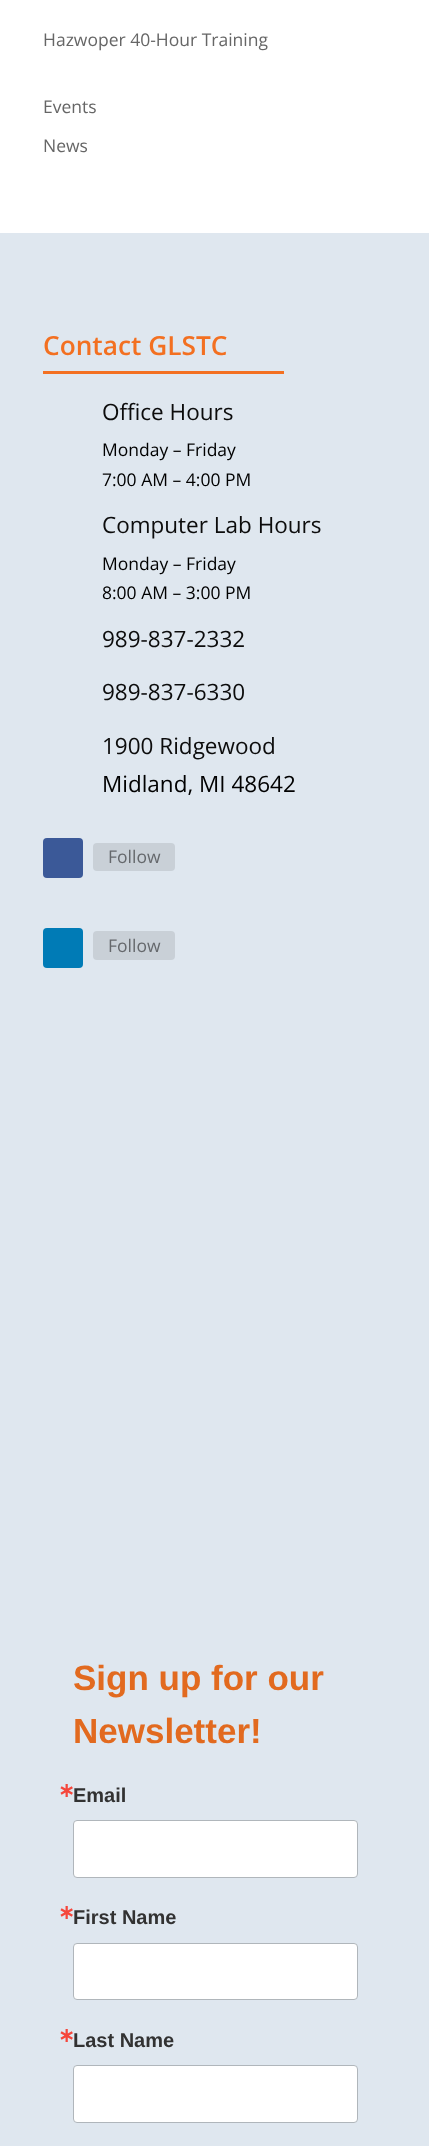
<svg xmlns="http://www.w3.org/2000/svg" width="429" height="2146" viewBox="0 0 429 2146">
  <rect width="100%" height="100%" fill="#ffffff"/>
  <text x="43" y="46" font-family="Open Sans" font-size="17.5" fill="#666666">Hazwoper 40-Hour Training</text>
  <text x="43" y="113" font-family="Open Sans" font-size="17.5" fill="#666666">Events</text>
  <text x="43" y="152" font-family="Open Sans" font-size="17.5" fill="#666666">News</text>
  <rect x="0" y="233" width="429" height="1913" fill="#dfe7ef"/>
  <text x="43" y="355" font-family="Open Sans" font-size="26.25" font-weight="600" fill="#f37021">Contact GLSTC</text>
  <rect x="43" y="371" width="241" height="3" fill="#f37021"/>
  <text x="102" y="420" font-family="Open Sans" font-size="22.5" fill="#0c0c0c">Office Hours</text>
  <text x="102" y="456" font-family="Open Sans" font-size="17.5" fill="#000000">Monday – Friday</text>
  <text x="102" y="486" font-family="Open Sans" font-size="17.5" fill="#000000">7:00 AM – 4:00 PM</text>
  <text x="102" y="533" font-family="Open Sans" font-size="22.5" fill="#0c0c0c">Computer Lab Hours</text>
  <text x="102" y="570" font-family="Open Sans" font-size="17.5" fill="#000000">Monday – Friday</text>
  <text x="102" y="599" font-family="Open Sans" font-size="17.5" fill="#000000">8:00 AM – 3:00 PM</text>
  <text x="102" y="647" font-family="Open Sans" font-size="22.5" fill="#0c0c0c">989-837-2332</text>
  <text x="102" y="700" font-family="Open Sans" font-size="22.5" fill="#0c0c0c">989-837-6330</text>
  <text x="102" y="754" font-family="Open Sans" font-size="22.5" fill="#0c0c0c">1900 Ridgewood</text>
  <text x="102" y="792" font-family="Open Sans" font-size="22.5" fill="#000000">Midland, MI 48642</text>
  <rect x="43" y="838" width="40" height="40" rx="4" fill="#3b5998"/>
  <rect x="93" y="843" width="82" height="28" rx="4" fill="#c9d0d7"/>
  <text x="108" y="863" font-family="Open Sans" font-size="17.5" fill="#65686c">Follow</text>
  <rect x="43" y="928" width="40" height="40" rx="4" fill="#007bb6"/>
  <rect x="93" y="931" width="82" height="29" rx="4" fill="#c9d0d7"/>
  <text x="108" y="952" font-family="Open Sans" font-size="17.5" fill="#65686c">Follow</text>
  <text x="73" y="1690" font-family="Liberation Sans" font-size="35" font-weight="bold" fill="#e26a1f">Sign up for our</text>
  <text x="73" y="1743" font-family="Liberation Sans" font-size="35" font-weight="bold" fill="#e26a1f">Newsletter!</text>
  <text x="58" y="1797" font-family="DejaVu Sans" font-size="20" font-weight="bold" fill="#f5463b">∗</text>
  <text x="73" y="1802" font-family="Liberation Sans" font-size="20" font-weight="bold" fill="#323232">Email</text>
  <rect x="73.5" y="1820.5" width="284" height="57" rx="3.5" fill="#ffffff" stroke="#b0b6bb"/>
  <text x="58" y="1919" font-family="DejaVu Sans" font-size="20" font-weight="bold" fill="#f5463b">∗</text>
  <text x="73" y="1924" font-family="Liberation Sans" font-size="20" font-weight="bold" fill="#323232">First Name</text>
  <rect x="73.5" y="1943.5" width="284" height="56" rx="3.5" fill="#ffffff" stroke="#b0b6bb"/>
  <text x="58" y="2042" font-family="DejaVu Sans" font-size="20" font-weight="bold" fill="#f5463b">∗</text>
  <text x="73" y="2047" font-family="Liberation Sans" font-size="20" font-weight="bold" fill="#323232">Last Name</text>
  <rect x="73.5" y="2065.5" width="284" height="57" rx="3.5" fill="#ffffff" stroke="#b0b6bb"/>
</svg>
